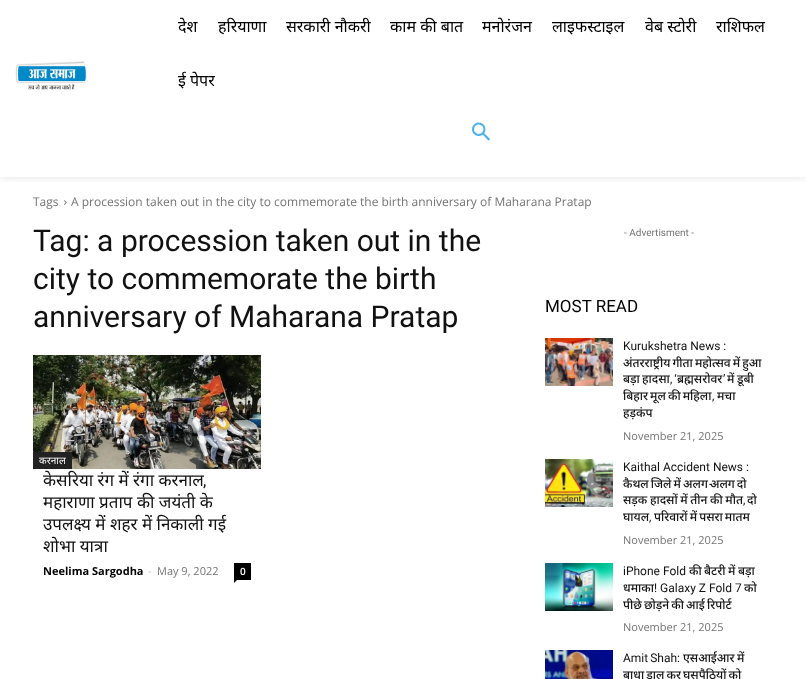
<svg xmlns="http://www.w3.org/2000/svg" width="806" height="679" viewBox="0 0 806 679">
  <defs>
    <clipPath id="clip1"><rect x="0" y="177" width="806" height="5"/></clipPath>
    <filter id="blur1" x="-50%" y="-200%" width="200%" height="500%"><feGaussianBlur stdDeviation="5"/></filter>
  </defs>
  <rect width="100%" height="100%" fill="#ffffff"/>
  <g clip-path="url(#clip1)">
    <rect x="0" y="0" width="806" height="177" fill="#000000" fill-opacity="0.12" filter="url(#blur1)"/>
  </g>
  <image x="15" y="61" width="72" height="29" href="img1.png"/>
  <text x="178" y="32" font-family="Noto Sans" font-size="16" fill="#000000">देश</text>
  <text x="218" y="32" font-family="Noto Sans" font-size="16" fill="#000000">हरियाणा</text>
  <text x="286" y="32" font-family="Noto Sans" font-size="16" fill="#000000">सरकारी नौकरी</text>
  <text x="390" y="32" font-family="Noto Sans" font-size="16" fill="#000000">काम की बात</text>
  <text x="482" y="32" font-family="Noto Sans" font-size="16" fill="#000000">मनोरंजन</text>
  <text x="552" y="32" font-family="Noto Sans" font-size="16" fill="#000000">लाइफस्टाइल</text>
  <text x="645" y="32" font-family="Noto Sans" font-size="16" fill="#000000">वेब स्टोरी</text>
  <text x="716" y="32" font-family="Noto Sans" font-size="16" fill="#000000">राशिफल</text>
  <text x="178" y="86" font-family="Noto Sans" font-size="16" fill="#000000">ई पेपर</text>
  <image x="472" y="122" width="18" height="19" href="img2.png"/>
  <text x="33" y="206" font-family="Open Sans" font-size="12" fill="#747474">Tags</text>
  <image x="64" y="200" width="3" height="5" href="img3.png"/>
  <text x="71" y="206" font-family="Open Sans" font-size="12" fill="#747474">A procession taken out in the city to commemorate the birth anniversary of Maharana Pratap</text>
  <text x="33" y="251" font-family="Roboto" font-size="30" fill="#111111">Tag: a procession taken out in the</text>
  <text x="33" y="289" font-family="Roboto" font-size="30" fill="#111111">city to commemorate the birth</text>
  <text x="33" y="327" font-family="Roboto" font-size="30" fill="#111111">anniversary of Maharana Pratap</text>
  <image x="33" y="355" width="228" height="114" href="img4.png"/>
  <rect x="33" y="452" width="39" height="17" fill="#222222"/>
  <text x="39" y="464" font-family="Noto Sans" font-size="10" fill="#ffffff">करनाल</text>
  <text x="43" y="486" font-family="Noto Sans" font-size="17" fill="#111111">केसरिया रंग में रंगा करनाल</text>
  <text x="203" y="486" font-family="Roboto" font-size="17" fill="#111111">,</text>
  <text x="43" y="508" font-family="Noto Sans" font-size="17" fill="#111111">महाराणा प्रताप की जयंती के</text>
  <text x="43" y="530" font-family="Noto Sans" font-size="17" fill="#111111">उपलक्ष्य में शहर में निकाली गई</text>
  <text x="43" y="552" font-family="Noto Sans" font-size="17" fill="#111111">शोभा यात्रा</text>
  <text x="43" y="575" font-family="Open Sans" font-size="11" font-weight="bold" fill="#000000">Neelima Sargodha</text>
  <text x="148" y="575" font-family="Open Sans" font-size="11" fill="#cccccc">-</text>
  <text x="157" y="575" font-family="Open Sans" font-size="11" fill="#747474">May 9, 2022</text>
  <rect x="234" y="563" width="17" height="17" fill="#000000"/>
  <text x="240" y="575" font-family="Open Sans" font-size="10" font-weight="600" fill="#ffffff">0</text>
  <path d="M234 580H237L234 583Z" fill="#000000"/>
  <text x="624" y="236" font-family="Roboto" font-size="10" fill="#747474">- Advertisment -</text>
  <text x="545" y="312" font-family="Roboto" font-size="17" fill="#000000">MOST READ</text>
  <image x="545" y="338" width="68" height="48" href="img5.png"/>
  <text x="623" y="350" font-family="Roboto" font-size="12" fill="#111111">Kurukshetra News :</text>
  <text x="623" y="367" word-spacing="-1" font-family="Noto Sans" font-size="12" font-weight="500" fill="#111111">अंतरराष्ट्रीय गीता महोत्सव में हुआ</text>
  <text x="670" y="383" word-spacing="-1" font-family="Roboto" font-size="12" fill="#111111">, ‘</text>
  <text x="677" y="383" font-family="Noto Sans" font-size="12" font-weight="500" fill="#111111">ब्रह्मसरोवर</text>
  <text x="723" y="383" font-family="Roboto" font-size="12" fill="#111111">’</text>
  <text x="727" y="383" font-family="Noto Sans" font-size="12" font-weight="500" fill="#111111">में</text>
  <text x="737" y="383" font-family="Noto Sans" font-size="12" font-weight="500" fill="#111111">डूबी</text>
  <text x="623" y="383" font-family="Noto Sans" font-size="12" font-weight="500" fill="#111111">बड़ा</text>
  <text x="642" y="383" font-family="Noto Sans" font-size="12" font-weight="500" fill="#111111">हादसा</text>
  <text x="623" y="400" word-spacing="-1" font-family="Noto Sans" font-size="12" font-weight="500" fill="#111111">बिहार मूल की महिला</text>
  <text x="712" y="400" font-family="Roboto" font-size="12" fill="#111111">,</text>
  <text x="717" y="400" font-family="Noto Sans" font-size="12" font-weight="500" fill="#111111">मचा</text>
  <text x="623" y="417" font-family="Noto Sans" font-size="12" font-weight="500" fill="#111111">हड़कंप</text>
  <text x="623" y="440" font-family="Open Sans" font-size="11" fill="#747474">November 21, 2025</text>
  <image x="545" y="459" width="68" height="48" href="img6.png"/>
  <text x="623" y="471" font-family="Roboto" font-size="12" fill="#111111">Kaithal Accident News :</text>
  <text x="623" y="488" word-spacing="-1" font-family="Noto Sans" font-size="12" font-weight="500" fill="#111111">कैथल जिले में अलग अलग दो</text>
  <text x="709" y="488" font-family="Roboto" font-size="12" fill="#111111">-</text>
  <text x="623" y="504" word-spacing="-0.5" font-family="Noto Sans" font-size="12" font-weight="500" fill="#111111">सड़क हादसों में तीन की मौत</text>
  <text x="743" y="504" font-family="Roboto" font-size="12" fill="#111111">,</text>
  <text x="747" y="504" font-family="Noto Sans" font-size="12" font-weight="500" fill="#111111">दो</text>
  <text x="623" y="521" font-family="Noto Sans" font-size="12" font-weight="500" fill="#111111">घायल</text>
  <text x="649" y="521" font-family="Roboto" font-size="12" fill="#111111">,</text>
  <text x="654" y="521" word-spacing="-1" font-family="Noto Sans" font-size="12" font-weight="500" fill="#111111">परिवारों में पसरा मातम</text>
  <text x="623" y="544" font-family="Open Sans" font-size="11" fill="#747474">November 21, 2025</text>
  <image x="545" y="563" width="68" height="48" href="img7.png"/>
  <text x="623" y="575" font-family="Roboto" font-size="12" fill="#111111">iPhone Fold</text>
  <text x="689" y="575" font-family="Noto Sans" font-size="12" font-weight="500" fill="#111111">की</text>
  <text x="704" y="575" font-family="Noto Sans" font-size="12" font-weight="500" fill="#111111">बैटरी</text>
  <text x="728" y="575" font-family="Noto Sans" font-size="12" font-weight="500" fill="#111111">में</text>
  <text x="738" y="575" font-family="Noto Sans" font-size="12" font-weight="500" fill="#111111">बड़ा</text>
  <text x="623" y="592" font-family="Noto Sans" font-size="12" font-weight="500" fill="#111111">धमाका</text>
  <text x="654" y="592" font-family="Roboto" font-size="12" fill="#111111">! Galaxy Z Fold 7</text>
  <text x="744" y="592" font-family="Noto Sans" font-size="12" font-weight="500" fill="#111111">को</text>
  <text x="623" y="609" word-spacing="-1" font-family="Noto Sans" font-size="12" font-weight="500" fill="#111111">पीछे छोड़ने की आई रिपोर्ट</text>
  <text x="623" y="631" font-family="Open Sans" font-size="11" fill="#747474">November 21, 2025</text>
  <image x="545" y="650" width="68" height="29" href="img8.png"/>
  <text x="623" y="662" word-spacing="-1" font-family="Roboto" font-size="12" fill="#111111">Amit Shah:</text>
  <text x="683" y="662" font-family="Noto Sans" font-size="12" font-weight="500" fill="#111111">एसआईआर</text>
  <text x="737" y="662" font-family="Noto Sans" font-size="12" font-weight="500" fill="#111111">में</text>
  <text x="623" y="679" word-spacing="-1" font-family="Noto Sans" font-size="12" font-weight="500" fill="#111111">बाधा डाल कर घुसपैठियों को</text>
</svg>
